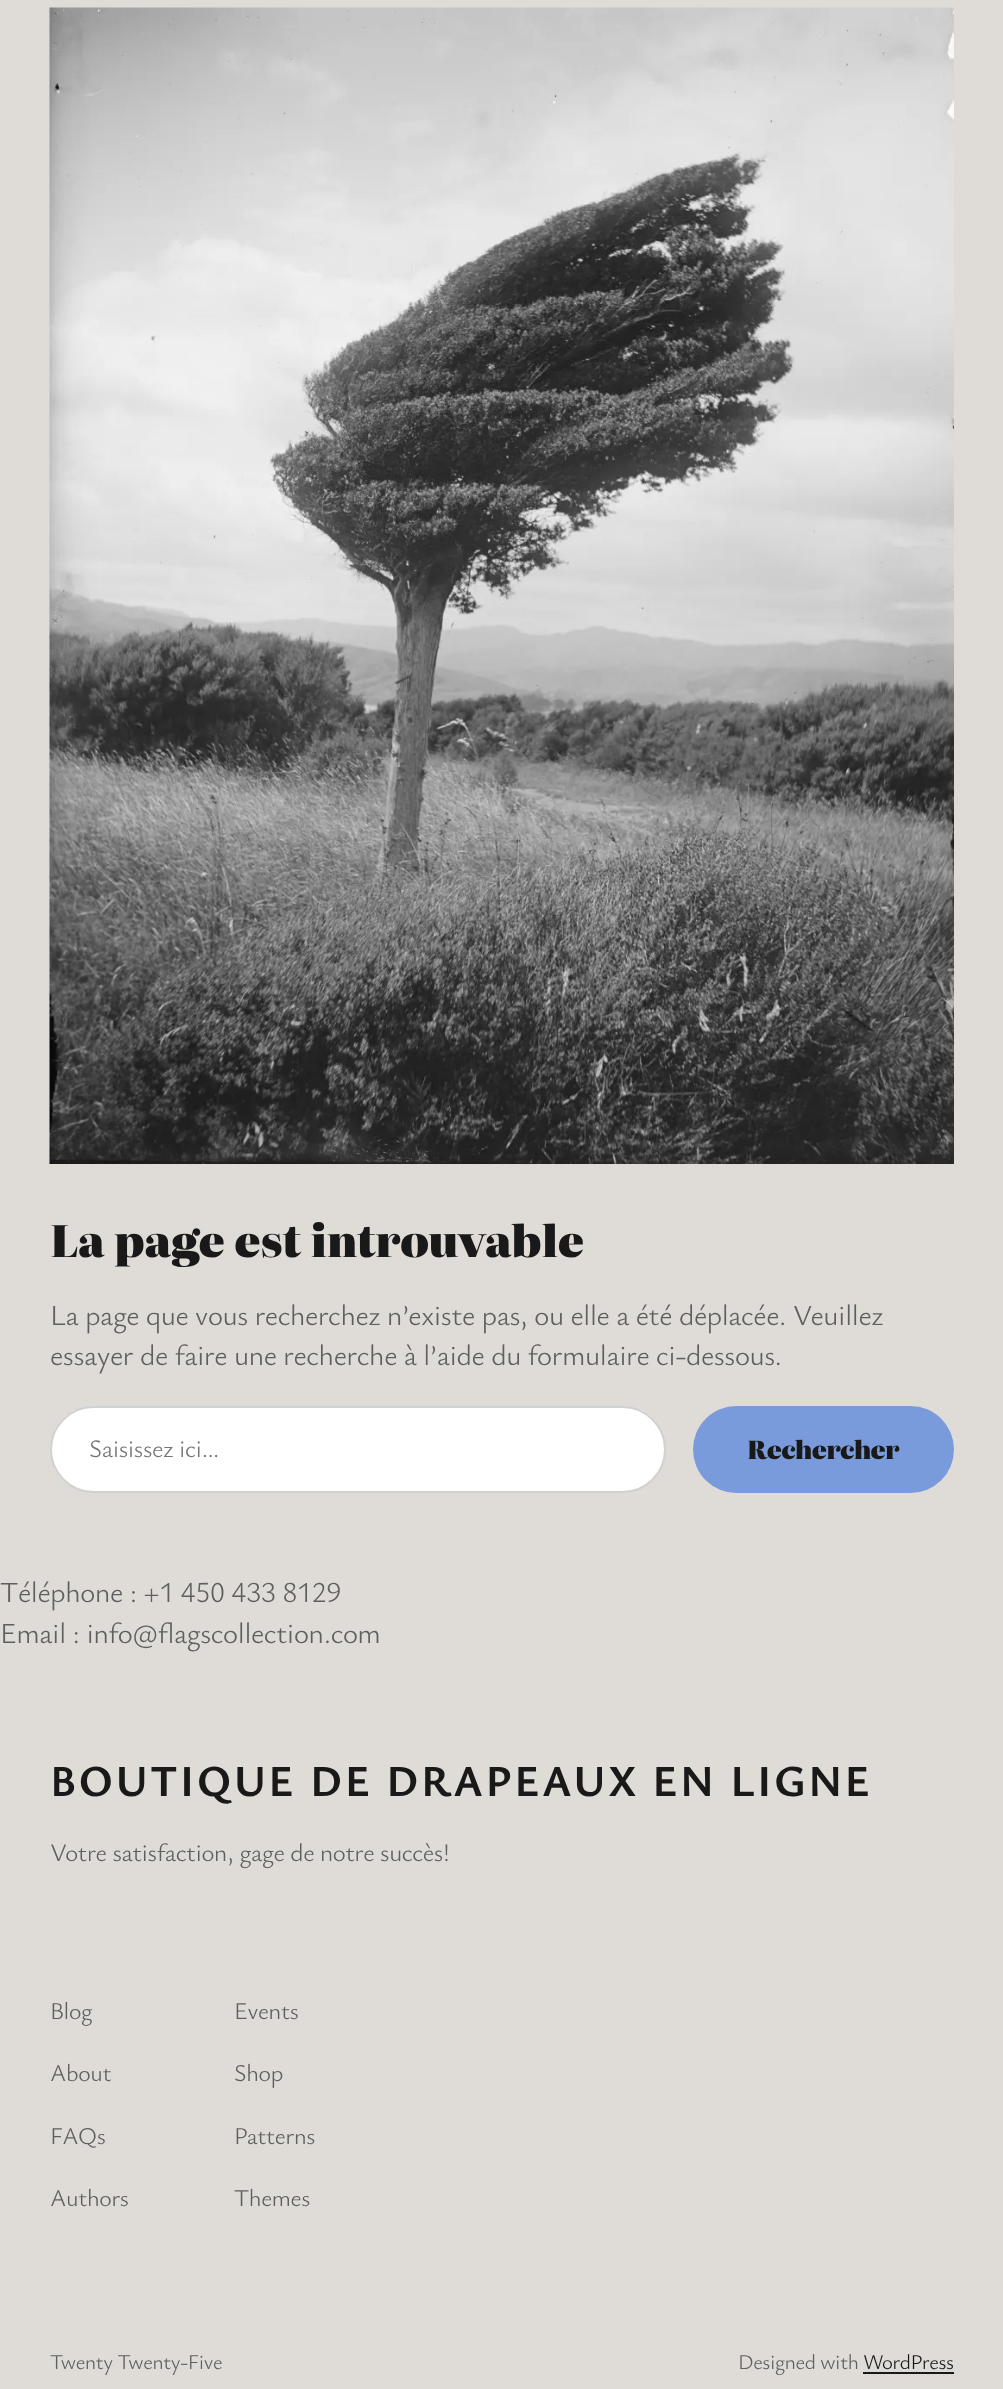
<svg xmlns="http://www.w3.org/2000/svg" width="1003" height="2389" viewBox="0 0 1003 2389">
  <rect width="100%" height="100%" fill="#dfdcd7"/>
  <image x="49" y="7" width="905" height="1157" href="img1.png"/>
  <text x="50" y="1257" font-family="Literata" font-size="43.5" font-weight="900" letter-spacing="-0.15" fill="#191919">La page est introuvable</text>
  <text x="50" y="1325" font-family="Ysabeau Office" font-size="29.05" font-weight="300" letter-spacing="-0.35" fill="#5f5f5f">La page que vous recherchez n’existe pas, ou elle a été déplacée. Veuillez</text>
  <text x="50" y="1365" font-family="Ysabeau Office" font-size="29.05" font-weight="300" letter-spacing="-0.35" fill="#5f5f5f">essayer de faire une recherche à l’aide du formulaire ci-dessous.</text>
  <rect x="50" y="1406" width="616" height="87" rx="43.5" fill="#ffffff"/>
  <rect x="51" y="1407" width="614" height="85" rx="42.5" fill="none" stroke="#191919" stroke-opacity="0.2" stroke-width="2"/>
  <text x="89" y="1457" font-family="Ysabeau Office" font-size="25" font-weight="300" letter-spacing="-0.35" fill="#757575">Saisissez ici…</text>
  <rect x="693" y="1406" width="261" height="87" rx="43.5" fill="#7a9bdb"/>
  <text x="747" y="1459" font-family="Literata" font-size="25" font-weight="900" letter-spacing="-0.5" fill="#191919">Rechercher</text>
  <text x="0" y="1602" font-family="Ysabeau Office" font-size="29.05" font-weight="300" letter-spacing="-0.35" fill="#5f5f5f">Téléphone : +1 450 433 8129</text>
  <text x="0" y="1643" font-family="Ysabeau Office" font-size="29.05" font-weight="300" letter-spacing="-0.35" fill="#5f5f5f">Email : info@flagscollection.com</text>
  <text x="50" y="1796" word-spacing="0.5" font-family="Ysabeau Office" font-size="44" font-weight="bold" letter-spacing="2.4" fill="#191919">BOUTIQUE DE DRAPEAUX EN LIGNE</text>
  <text x="50" y="1861" font-family="Ysabeau Office" font-size="25" font-weight="300" letter-spacing="-0.35" fill="#5f5f5f">Votre satisfaction, gage de notre succès!</text>
  <text x="50" y="2019" font-family="Ysabeau Office" font-size="24" font-weight="300" letter-spacing="-0.35" fill="#5f5f5f">Blog</text>
  <text x="50" y="2081" font-family="Ysabeau Office" font-size="24" font-weight="300" letter-spacing="-0.35" fill="#5f5f5f">About</text>
  <text x="50" y="2144" font-family="Ysabeau Office" font-size="24" font-weight="300" letter-spacing="-0.35" fill="#5f5f5f">FAQs</text>
  <text x="50" y="2206" font-family="Ysabeau Office" font-size="24" font-weight="300" letter-spacing="-0.35" fill="#5f5f5f">Authors</text>
  <text x="234" y="2019" font-family="Ysabeau Office" font-size="24" font-weight="300" letter-spacing="-0.35" fill="#5f5f5f">Events</text>
  <text x="234" y="2081" font-family="Ysabeau Office" font-size="24" font-weight="300" letter-spacing="-0.35" fill="#5f5f5f">Shop</text>
  <text x="234" y="2144" font-family="Ysabeau Office" font-size="24" font-weight="300" letter-spacing="-0.35" fill="#5f5f5f">Patterns</text>
  <text x="234" y="2206" font-family="Ysabeau Office" font-size="24" font-weight="300" letter-spacing="-0.35" fill="#5f5f5f">Themes</text>
  <text x="50" y="2369" font-family="Ysabeau Office" font-size="21" font-weight="300" letter-spacing="-0.35" fill="#5f5f5f">Twenty Twenty-Five</text>
  <text x="738" y="2369" font-family="Ysabeau Office" font-size="21" font-weight="300" letter-spacing="-0.35" fill="#5f5f5f">Designed with</text>
  <text x="863" y="2369" font-family="Ysabeau Office" font-size="21" font-weight="300" letter-spacing="-0.35" fill="#191919">WordPress</text>
  <rect x="863" y="2372" width="91" height="2" fill="#191919"/>
</svg>
